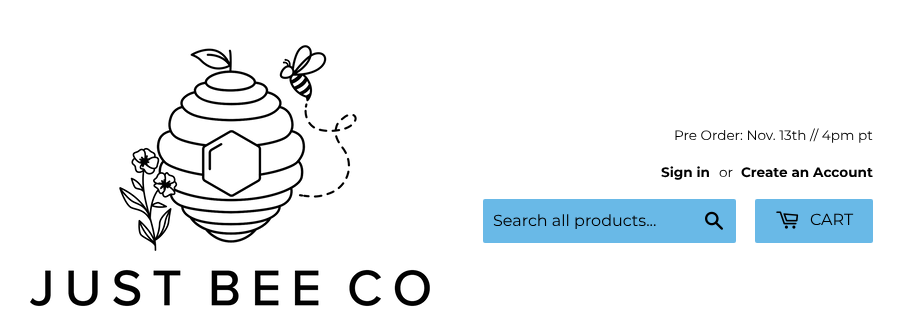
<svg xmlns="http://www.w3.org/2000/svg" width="903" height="310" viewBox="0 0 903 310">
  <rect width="100%" height="100%" fill="#ffffff"/>
  <image x="30" y="45" width="400" height="262" href="img1.png"/>
  <text x="674" y="140" font-family="Montserrat" font-size="13.6" fill="#000000">Pre Order: Nov. 13th // 4pm pt</text>
  <text x="661" y="177" font-family="Montserrat" font-size="13.6" font-weight="bold" fill="#000000">Sign in</text>
  <text x="719" y="177" font-family="Montserrat" font-size="13.6" fill="#000000">or</text>
  <text x="741" y="177" font-family="Montserrat" font-size="13.6" font-weight="bold" fill="#000000">Create an Account</text>
  <rect x="483" y="199" width="253" height="44" rx="2" fill="#69b9e7"/>
  <text x="493" y="226" font-family="Montserrat" font-size="16" fill="#000000">Search all products...</text>
  <image x="705" y="211" width="18" height="19" href="img2.png"/>
  <rect x="755" y="199" width="118" height="44" rx="2" fill="#69b9e7"/>
  <image x="776" y="211" width="23" height="18" href="img3.png"/>
  <text x="810" y="225" font-family="Montserrat" font-size="16" fill="#000000">CART</text>
</svg>
